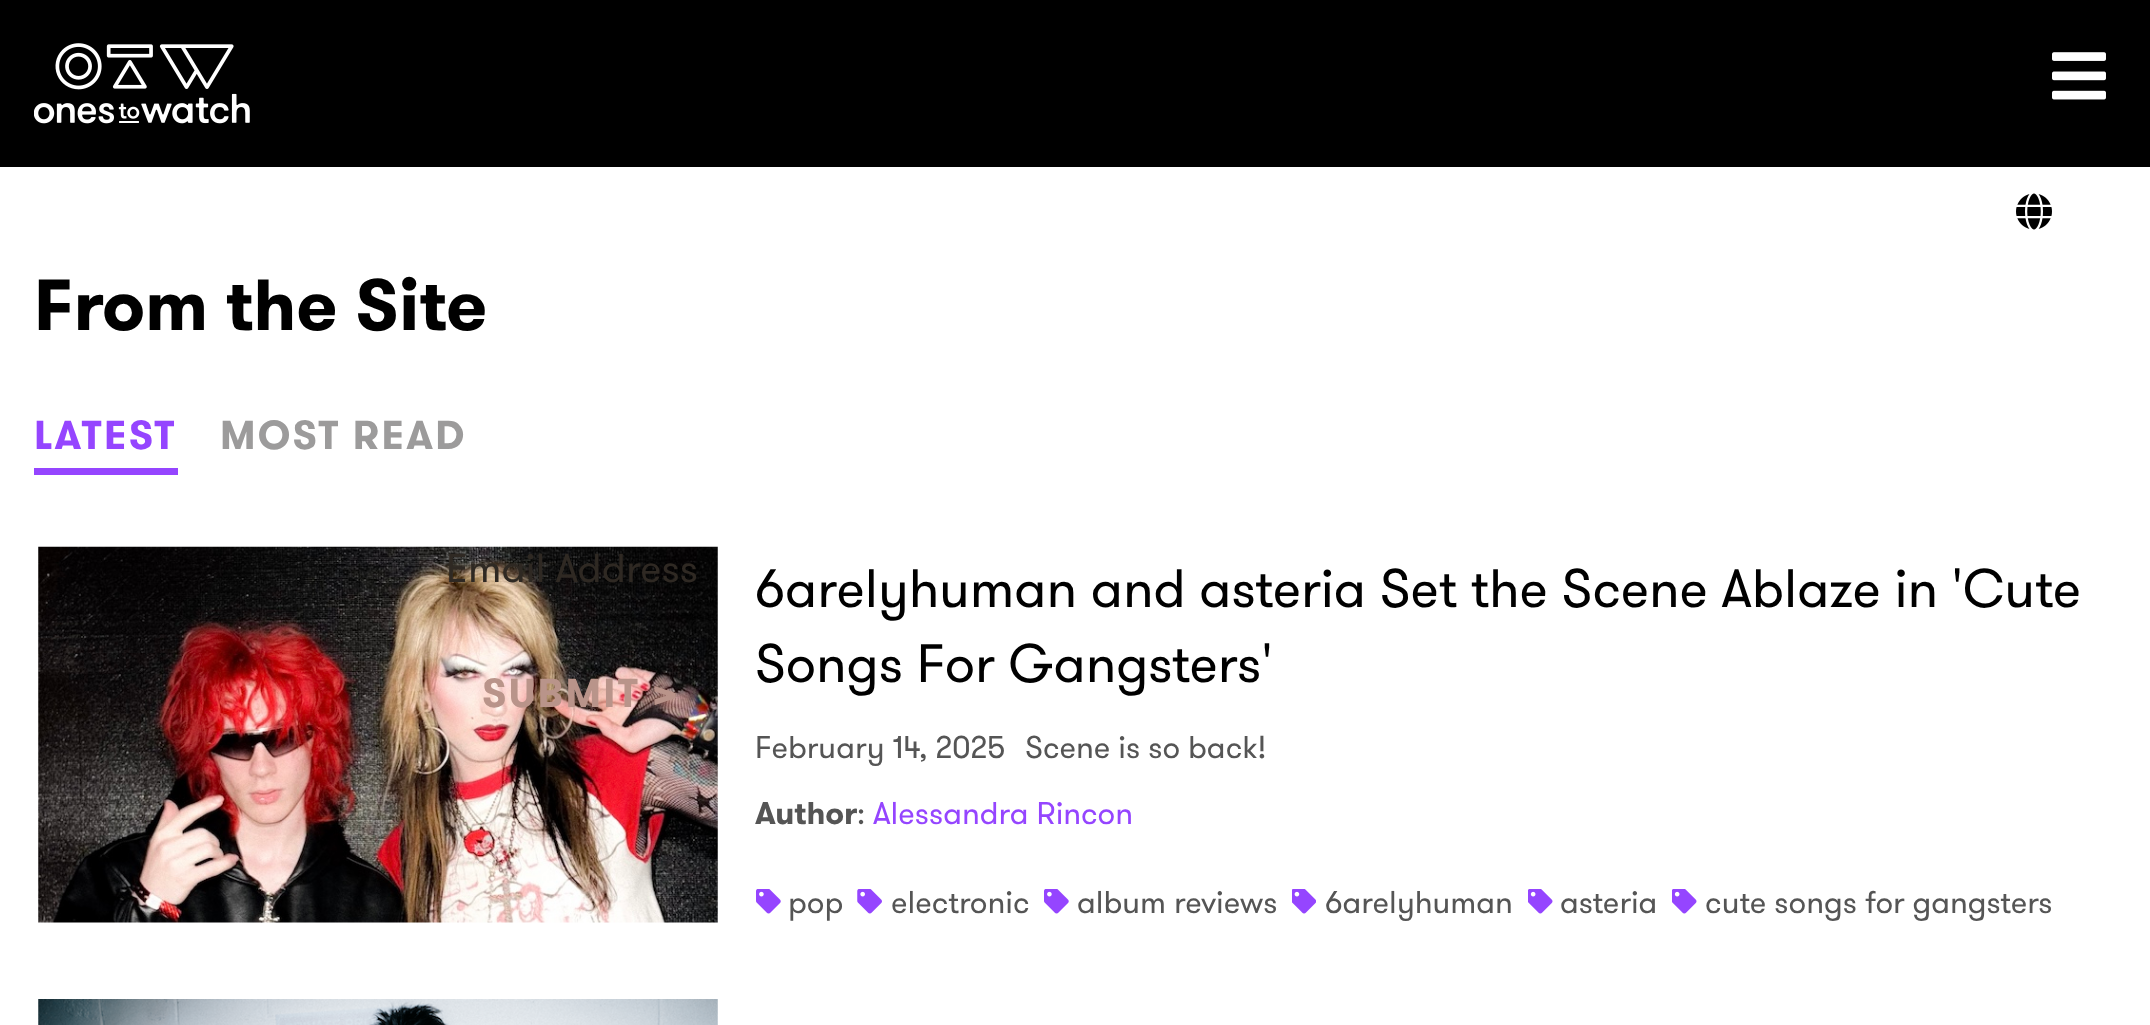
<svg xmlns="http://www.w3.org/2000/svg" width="2150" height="1025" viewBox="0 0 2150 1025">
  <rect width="100%" height="100%" fill="#ffffff"/>
  <rect x="0" y="0" width="2150" height="167" fill="#000000"/>
  <image x="34" y="43" width="216" height="81" href="img1.png"/>
  <image x="2052" y="52" width="54" height="48" href="img2.png"/>
  <image x="2016" y="193" width="36" height="37" href="img3.png"/>
  <text x="34" y="330" font-family="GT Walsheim" font-size="72" font-weight="bold" fill="#000000">From the Site</text>
  <rect x="34" y="468" width="144" height="7" fill="#9545ff"/>
  <text x="34" y="449" font-family="GT Walsheim" font-size="40.5" font-weight="bold" letter-spacing="2.25" fill="#9545ff">LATEST</text>
  <text x="220" y="449" font-family="GT Walsheim" font-size="40.5" font-weight="bold" letter-spacing="2.25" fill="#9c9b9b">MOST READ</text>
  <image x="38" y="546" width="680" height="377" href="img4.png"/>
  <text x="755" y="607" font-family="GT Walsheim" font-size="54" fill="#000000">6arelyhuman and asteria Set the Scene Ablaze in 'Cute</text>
  <text x="755" y="682" font-family="GT Walsheim" font-size="54" fill="#000000">Songs For Gangsters'</text>
  <text x="755" y="758" font-family="GT Walsheim" font-size="31.5" fill="#555555">February 14, 2025</text>
  <text x="1025" y="758" font-family="GT Walsheim" font-size="31.5" fill="#555555">Scene is so back!</text>
  <text x="755" y="824" font-family="GT Walsheim" font-size="31.5" font-weight="bold" fill="#555555">Author</text>
  <text x="857" y="824" font-family="GT Walsheim" font-size="31.5" fill="#555555">:</text>
  <text x="873" y="824" font-family="GT Walsheim" font-size="31.5" fill="#9545ff">Alessandra Rincon</text>
  <image x="756" y="889" width="25" height="25" href="img5.png"/>
  <text x="788" y="913" font-family="GT Walsheim" font-size="31.5" fill="#555555">pop</text>
  <image x="857" y="889" width="25" height="25" href="img6.png"/>
  <text x="891" y="913" font-family="GT Walsheim" font-size="31.5" fill="#555555">electronic</text>
  <image x="1044" y="889" width="25" height="25" href="img5.png"/>
  <text x="1077" y="913" font-family="GT Walsheim" font-size="31.5" fill="#555555">album reviews</text>
  <image x="1292" y="889" width="24" height="25" href="img7.png"/>
  <text x="1325" y="913" font-family="GT Walsheim" font-size="31.5" fill="#555555">6arelyhuman</text>
  <image x="1528" y="889" width="25" height="25" href="img8.png"/>
  <text x="1560" y="913" font-family="GT Walsheim" font-size="31.5" fill="#555555">asteria</text>
  <image x="1672" y="889" width="25" height="25" href="img8.png"/>
  <text x="1705" y="913" font-family="GT Walsheim" font-size="31.5" fill="#555555">cute songs for gangsters</text>
  <image x="38" y="999" width="680" height="26" href="img9.png"/>
  <text x="446" y="582" font-family="GT Walsheim" font-size="40.5" fill="#2f2923">Email Address</text>
  <text x="482" y="707" font-family="GT Walsheim" font-size="40.5" font-weight="bold" letter-spacing="2.25" fill="#b9948a">SUBMIT &gt;</text>
</svg>
